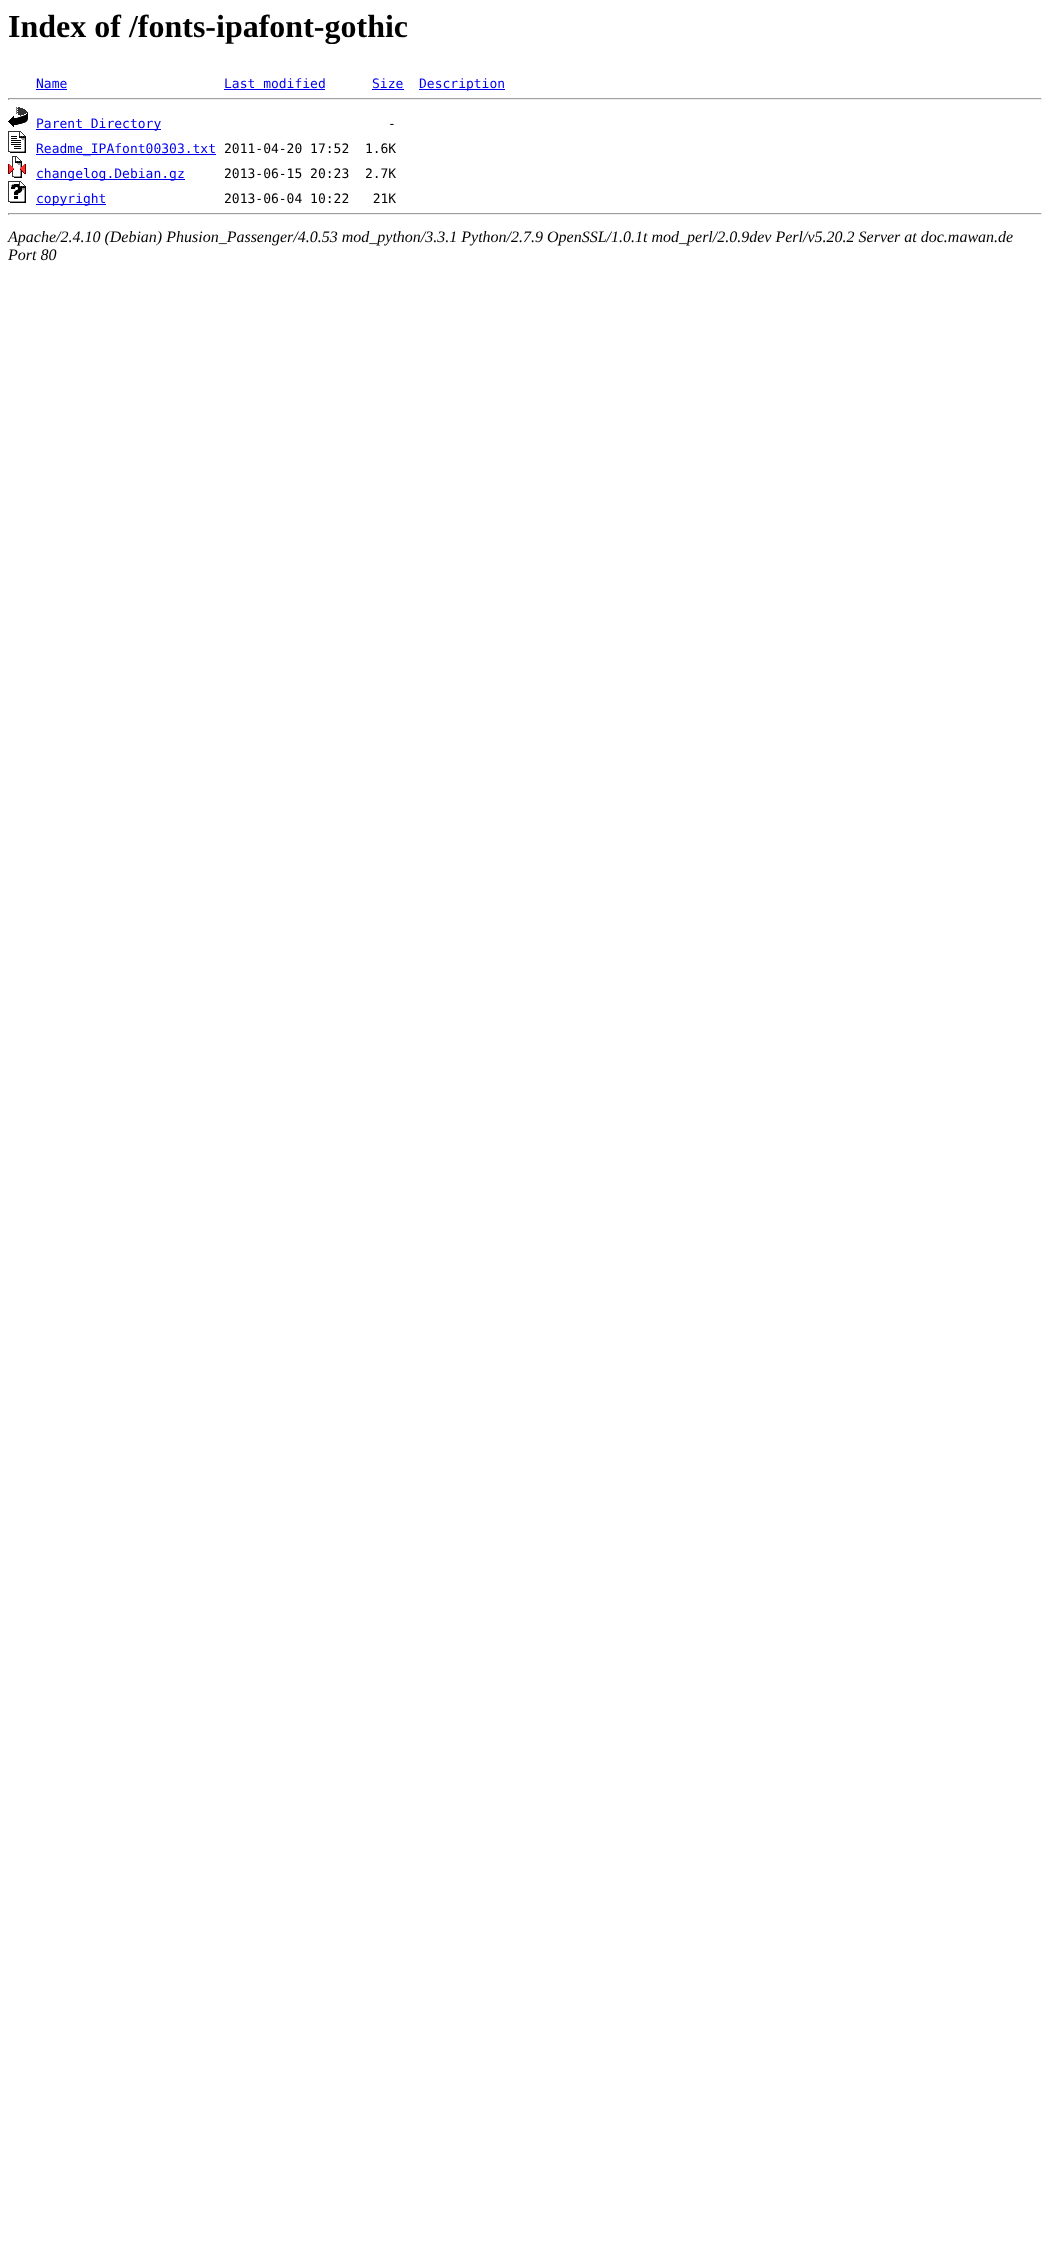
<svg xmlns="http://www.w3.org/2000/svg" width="1050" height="2259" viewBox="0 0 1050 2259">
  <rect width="100%" height="100%" fill="#ffffff"/>
  <text x="8" y="37" font-family="Liberation Serif" font-size="32" font-weight="bold" fill="#000000">Index of /fonts-ipafont-gothic</text>
  <text x="36" y="88" font-family="DejaVu Sans Mono" font-size="13" fill="#0000ee">Name</text>
  <rect x="36" y="89" width="31" height="1" fill="#0000ee"/>
  <text x="224" y="88" font-family="DejaVu Sans Mono" font-size="13" fill="#0000ee">Last modified</text>
  <rect x="224" y="89" width="101" height="1" fill="#0000ee"/>
  <text x="372" y="88" font-family="DejaVu Sans Mono" font-size="13" fill="#0000ee">Size</text>
  <rect x="372" y="89" width="32" height="1" fill="#0000ee"/>
  <rect x="419" y="89" width="86" height="1" fill="#0000ee"/>
  <text x="419" y="88" font-family="DejaVu Sans Mono" font-size="13" fill="#0000ee">Description</text>
  <rect x="8" y="98" width="1034" height="1" fill="#9f9f9f"/>
  <rect x="1041" y="98" width="1" height="2" fill="#eeeeee"/>
  <rect x="8" y="99" width="1034" height="1" fill="#eeeeee"/>
  <rect x="8" y="98" width="1" height="2" fill="#9f9f9f"/>
  <image x="8" y="107" width="20" height="20" href="img1.png"/>
  <rect x="36" y="129" width="125" height="1" fill="#0000ee"/>
  <text x="36" y="128" font-family="DejaVu Sans Mono" font-size="13" fill="#0000ee">Parent Directory</text>
  <text x="388" y="128" font-family="DejaVu Sans Mono" font-size="13" fill="#000000">-</text>
  <image x="8" y="131" width="18" height="22" href="img2.png"/>
  <rect x="36" y="154" width="180" height="1" fill="#0000ee"/>
  <text x="36" y="153" font-family="DejaVu Sans Mono" font-size="13" fill="#0000ee">Readme_IPAfont00303.txt</text>
  <text x="224" y="153" font-family="DejaVu Sans Mono" font-size="13" fill="#000000" xml:space="preserve">2011-04-20 17:52  1.6K</text>
  <image x="8" y="156" width="18" height="22" href="img3.png"/>
  <rect x="36" y="179" width="149" height="1" fill="#0000ee"/>
  <text x="36" y="178" font-family="DejaVu Sans Mono" font-size="13" fill="#0000ee">changelog.Debian.gz</text>
  <text x="224" y="178" font-family="DejaVu Sans Mono" font-size="13" fill="#000000" xml:space="preserve">2013-06-15 20:23  2.7K</text>
  <image x="8" y="181" width="18" height="22" href="img4.png"/>
  <rect x="36" y="204" width="70" height="1" fill="#0000ee"/>
  <text x="36" y="203" font-family="DejaVu Sans Mono" font-size="13" fill="#0000ee">copyright</text>
  <text x="224" y="203" font-family="DejaVu Sans Mono" font-size="13" fill="#000000" xml:space="preserve">2013-06-04 10:22   21K</text>
  <rect x="8" y="213" width="1034" height="1" fill="#9f9f9f"/>
  <rect x="1041" y="213" width="1" height="2" fill="#eeeeee"/>
  <rect x="8" y="214" width="1034" height="1" fill="#eeeeee"/>
  <rect x="8" y="213" width="1" height="2" fill="#9f9f9f"/>
  <text x="8" y="242" font-family="Liberation Serif" font-size="16" font-style="italic" fill="#000000">Apache/2.4.10 (Debian) Phusion_Passenger/4.0.53 mod_python/3.3.1 Python/2.7.9 OpenSSL/1.0.1t mod_perl/2.0.9dev Perl/v5.20.2 Server at doc.mawan.de</text>
  <text x="8" y="260" font-family="Liberation Serif" font-size="16" font-style="italic" fill="#000000">Port 80</text>
</svg>
